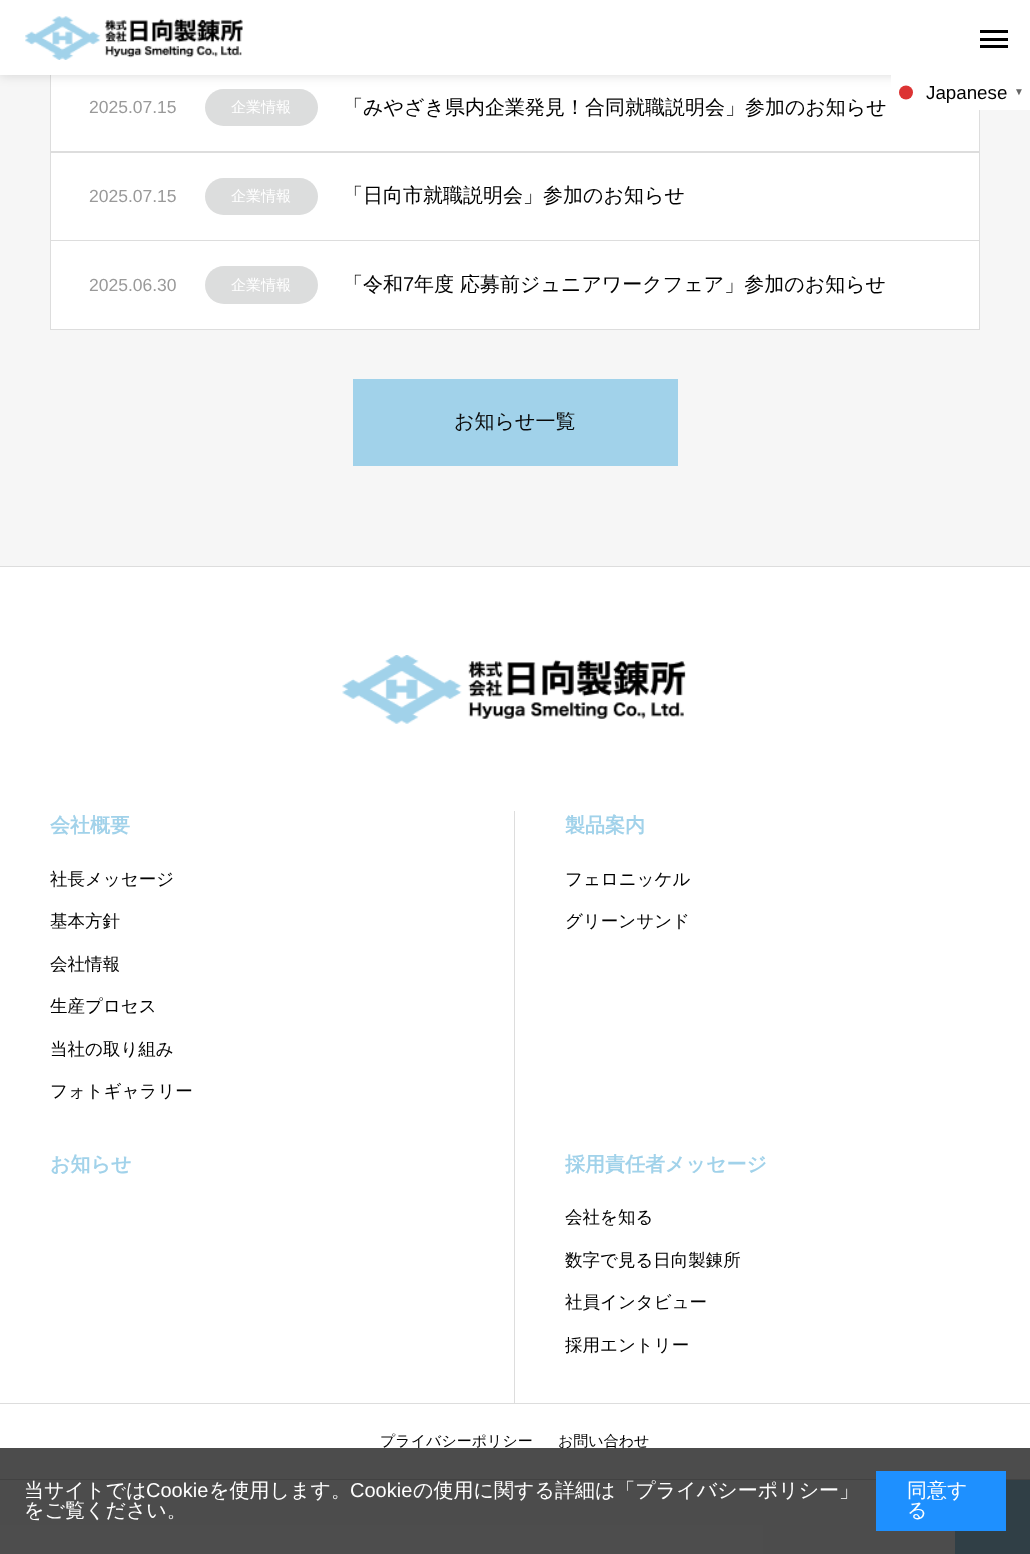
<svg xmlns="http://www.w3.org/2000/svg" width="1030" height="1554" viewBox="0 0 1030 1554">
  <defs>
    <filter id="blur1" x="-50%" y="-200%" width="200%" height="500%"><feGaussianBlur stdDeviation="6"/></filter>
  </defs>
  <rect width="100%" height="100%" fill="#ffffff"/>
  <rect x="0" y="75" width="1030" height="491" fill="#f6f6f6"/>
  <rect x="51" y="75" width="928" height="254" fill="#ffffff"/>
  <rect x="50.5" y="63.5" width="929" height="89" fill="none" stroke="#dddddd"/>
  <rect x="205" y="89" width="113" height="37" rx="18.5" fill="#dcdddd"/>
  <rect x="0" y="0" width="1030" height="75" fill="#000000" fill-opacity="0.15" filter="url(#blur1)"/>
  <rect x="0" y="0" width="1030" height="75" fill="#ffffff"/>
  <image x="25" y="16" width="218" height="44" href="img1.png"/>
  <rect x="980" y="30" width="28" height="3" fill="#000000"/>
  <rect x="980" y="38" width="28" height="3" fill="#000000"/>
  <rect x="980" y="45" width="28" height="3" fill="#000000"/>
  <rect x="891" y="75" width="139" height="35" fill="#ffffff"/>
  <text x="926" y="99" font-family="Liberation Sans" font-size="18.75" fill="#000000">Japanese</text>
  <circle cx="906" cy="92.5" r="7" fill="#dc3333"/>
  <text x="1014" y="95" font-family="Liberation Sans" font-size="10" font-weight="bold" fill="#666666">▼</text>
  <text x="89" y="113" font-family="Liberation Sans" font-size="17.5" fill="#999999">2025.07.15</text>
  <text x="231" y="112" font-family="WenQuanYi Zen Hei" font-size="15" font-weight="500" fill="#ffffff">企業情報</text>
  <text x="343" y="114" font-family="WenQuanYi Zen Hei" font-size="20" font-weight="500" fill="#000000">「みやざき県内企業発見！合同就職説明会」参加のお知らせ</text>
  <rect x="50.5" y="151.5" width="929" height="89" fill="none" stroke="#dddddd"/>
  <text x="89" y="202" font-family="Liberation Sans" font-size="17.5" fill="#999999">2025.07.15</text>
  <rect x="205" y="178" width="113" height="37" rx="18.5" fill="#dcdddd"/>
  <text x="231" y="201" font-family="WenQuanYi Zen Hei" font-size="15" font-weight="500" fill="#ffffff">企業情報</text>
  <text x="343" y="202" font-family="WenQuanYi Zen Hei" font-size="20" font-weight="500" fill="#000000">「日向市就職説明会」参加のお知らせ</text>
  <rect x="50.5" y="240.5" width="929" height="89" fill="none" stroke="#dddddd"/>
  <text x="89" y="291" font-family="Liberation Sans" font-size="17.5" fill="#999999">2025.06.30</text>
  <rect x="205" y="266" width="113" height="38" rx="19" fill="#dcdddd"/>
  <text x="231" y="290" font-family="WenQuanYi Zen Hei" font-size="15" font-weight="500" fill="#ffffff">企業情報</text>
  <text x="343" y="291" font-family="WenQuanYi Zen Hei" font-size="20" font-weight="500" fill="#000000">「令和</text>
  <text x="403" y="291" font-family="Liberation Sans" font-size="20" fill="#000000">7</text>
  <text x="414" y="291" font-family="WenQuanYi Zen Hei" font-size="20" font-weight="500" fill="#000000">年度 応募前ジュニアワークフェア」参加のお知らせ</text>
  <rect x="353" y="379" width="325" height="87" fill="#a1d2ea"/>
  <text x="454" y="428" font-family="WenQuanYi Zen Hei" font-size="20" font-weight="500" fill="#0a0a0a">お知らせ一覧</text>
  <rect x="0" y="566" width="1030" height="1" fill="#dddddd"/>
  <image x="342" y="655" width="344" height="69" href="img2.png"/>
  <rect x="0" y="1403" width="1030" height="1" fill="#dddddd"/>
  <rect x="514" y="811" width="1" height="593" fill="#dddddd"/>
  <text x="50" y="832" font-family="WenQuanYi Zen Hei" font-size="20" font-weight="bold" fill="#a1d2ea">会社概要</text>
  <text x="50" y="885" font-family="WenQuanYi Zen Hei" font-size="17.5" font-weight="500" fill="#000000">社⻑メッセージ</text>
  <text x="50" y="927" font-family="WenQuanYi Zen Hei" font-size="17.5" font-weight="500" fill="#000000">基本方針</text>
  <text x="50" y="970" font-family="WenQuanYi Zen Hei" font-size="17.5" font-weight="500" fill="#000000">会社情報</text>
  <text x="50" y="1012" font-family="WenQuanYi Zen Hei" font-size="17.5" font-weight="500" fill="#000000">⽣産プロセス</text>
  <text x="50" y="1055" font-family="WenQuanYi Zen Hei" font-size="17.5" font-weight="500" fill="#000000">当社の取り組み</text>
  <text x="50" y="1097" font-family="WenQuanYi Zen Hei" font-size="17.5" font-weight="500" fill="#000000">フォトギャラリー</text>
  <text x="565" y="832" font-family="WenQuanYi Zen Hei" font-size="20" font-weight="bold" fill="#a1d2ea">製品案内</text>
  <text x="565" y="885" font-family="WenQuanYi Zen Hei" font-size="17.5" font-weight="500" fill="#000000">フェロニッケル</text>
  <text x="565" y="927" font-family="WenQuanYi Zen Hei" font-size="17.5" font-weight="500" fill="#000000">グリーンサンド</text>
  <text x="50" y="1171" font-family="WenQuanYi Zen Hei" font-size="20" font-weight="bold" fill="#a1d2ea">お知らせ</text>
  <text x="565" y="1171" font-family="WenQuanYi Zen Hei" font-size="20" font-weight="bold" fill="#a1d2ea">採用責任者メッセージ</text>
  <text x="565" y="1223" font-family="WenQuanYi Zen Hei" font-size="17.5" font-weight="500" fill="#000000">会社を知る</text>
  <text x="565" y="1266" font-family="WenQuanYi Zen Hei" font-size="17.5" font-weight="500" fill="#000000">数字で見る日向製錬所</text>
  <text x="565" y="1308" font-family="WenQuanYi Zen Hei" font-size="17.5" font-weight="500" fill="#000000">社員インタビュー</text>
  <text x="565" y="1351" font-family="WenQuanYi Zen Hei" font-size="17.5" font-weight="500" fill="#000000">採用エントリー</text>
  <text x="380" y="1446" font-family="WenQuanYi Zen Hei" font-size="15" font-weight="500" fill="#000000">プライバシーポリシー</text>
  <text x="558" y="1446" font-family="WenQuanYi Zen Hei" font-size="15" font-weight="500" fill="#000000">お問い合わせ</text>
  <rect x="0" y="1479" width="1030" height="1" fill="#dddddd"/>
  <rect x="955" y="1480" width="75" height="74" fill="#a1d2ea"/>
  <rect x="0" y="1448" width="1030" height="106" fill="#000000" fill-opacity="0.7"/>
  <text x="24" y="1497" font-family="WenQuanYi Zen Hei" font-size="20" font-weight="500" fill="#ffffff">当サイトでは</text>
  <text x="146" y="1497" font-family="Liberation Sans" font-size="20" fill="#ffffff">Cookie</text>
  <text x="209" y="1497" font-family="WenQuanYi Zen Hei" font-size="20" font-weight="500" fill="#ffffff">を使用します。</text>
  <text x="350" y="1497" font-family="Liberation Sans" font-size="20" fill="#ffffff">Cookie</text>
  <text x="413" y="1497" font-family="WenQuanYi Zen Hei" font-size="20" font-weight="500" fill="#ffffff">の使用に関する詳細は「プライバシーポリシー」</text>
  <text x="24" y="1517" font-family="WenQuanYi Zen Hei" font-size="20" font-weight="500" fill="#ffffff">をご覧ください。</text>
  <rect x="876" y="1471" width="130" height="60" fill="#1e90ff"/>
  <text x="907" y="1497" font-family="WenQuanYi Zen Hei" font-size="20" font-weight="500" fill="#ffffff">同意す</text>
  <text x="907" y="1517" font-family="WenQuanYi Zen Hei" font-size="20" font-weight="500" fill="#ffffff">る</text>
</svg>
